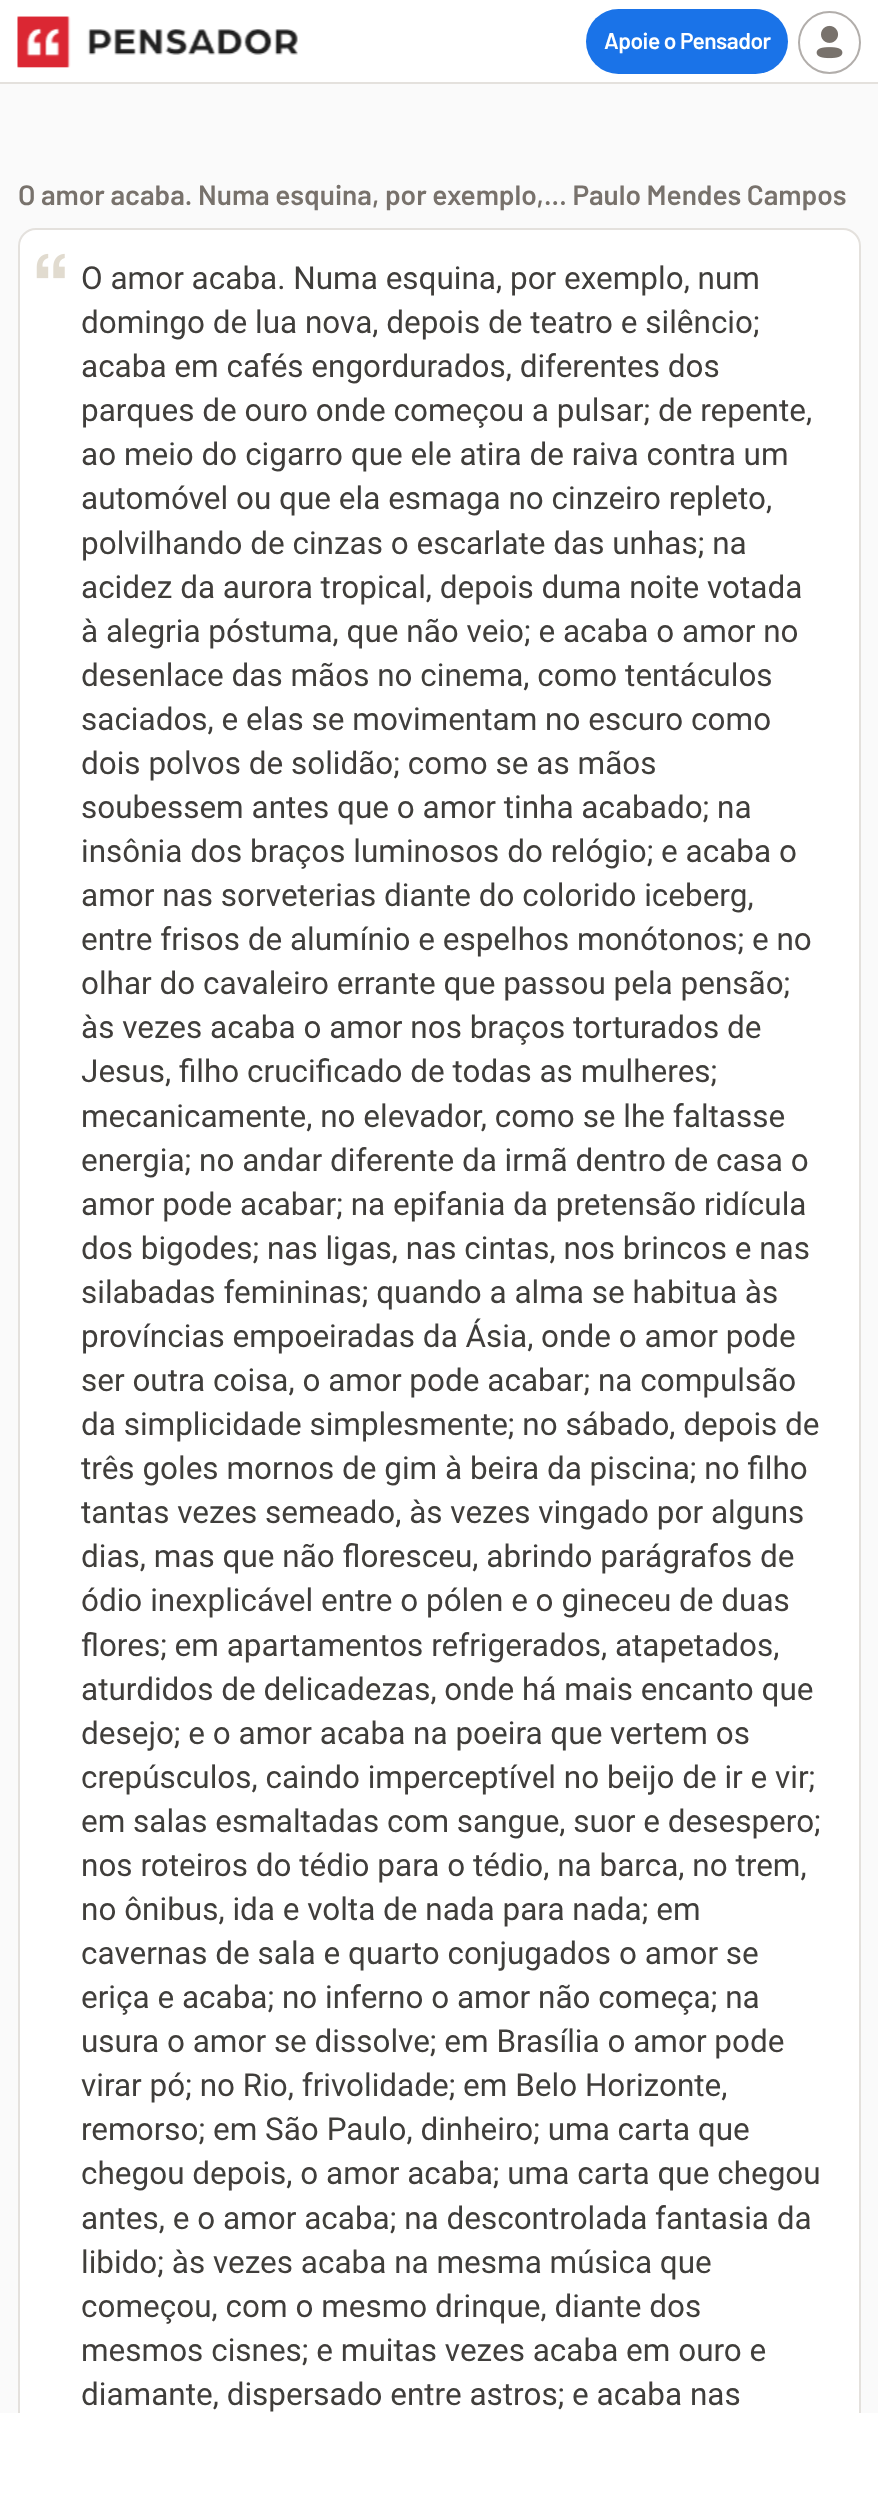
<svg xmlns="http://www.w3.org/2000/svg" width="878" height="2517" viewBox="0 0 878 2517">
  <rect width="100%" height="100%" fill="#fafafa"/>
  <rect x="0" y="0" width="878" height="82" fill="#ffffff"/>
  <rect x="0" y="82" width="878" height="2" fill="#e4e1dd"/>
  <image x="17" y="16" width="281" height="52" href="img1.png"/>
  <rect x="586" y="9" width="202" height="65" rx="32.5" fill="#1a73e8"/>
  <text x="604" y="49" font-family="Barlow" font-size="22.75" font-weight="600" letter-spacing="-0.5" fill="#ffffff">Apoie o Pensador</text>
  <circle cx="829.5" cy="42.5" r="30.5" fill="none" stroke="#b2aeab" stroke-width="2"/>
  <image x="816" y="25" width="27" height="34" href="img2.png"/>
  <text x="18" y="205" font-family="Barlow" font-size="28" font-weight="600" fill="#78726c">O amor acaba. Numa esquina, por exemplo,... Paulo Mendes Campos</text>
  <rect x="19" y="229" width="841" height="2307" rx="17" fill="#ffffff" stroke="#e4e1dd" stroke-width="2"/>
  <image x="36" y="253" width="29" height="26" href="img3.png"/>
  <text x="81" y="289" font-family="Roboto" font-size="31.5" fill="#403e3b">O amor acaba. Numa esquina, por exemplo, num</text>
  <text x="81" y="333" font-family="Roboto" font-size="31.5" fill="#403e3b">domingo de lua nova, depois de teatro e silêncio;</text>
  <text x="81" y="377" font-family="Roboto" font-size="31.5" fill="#403e3b">acaba em cafés engordurados, diferentes dos</text>
  <text x="81" y="421" font-family="Roboto" font-size="31.5" fill="#403e3b">parques de ouro onde começou a pulsar; de repente,</text>
  <text x="81" y="465" font-family="Roboto" font-size="31.5" fill="#403e3b">ao meio do cigarro que ele atira de raiva contra um</text>
  <text x="81" y="509" font-family="Roboto" font-size="31.5" fill="#403e3b">automóvel ou que ela esmaga no cinzeiro repleto,</text>
  <text x="81" y="554" font-family="Roboto" font-size="31.5" fill="#403e3b">polvilhando de cinzas o escarlate das unhas; na</text>
  <text x="81" y="598" font-family="Roboto" font-size="31.5" fill="#403e3b">acidez da aurora tropical, depois duma noite votada</text>
  <text x="81" y="642" font-family="Roboto" font-size="31.5" fill="#403e3b">à alegria póstuma, que não veio; e acaba o amor no</text>
  <text x="81" y="686" font-family="Roboto" font-size="31.5" fill="#403e3b">desenlace das mãos no cinema, como tentáculos</text>
  <text x="81" y="730" font-family="Roboto" font-size="31.5" fill="#403e3b">saciados, e elas se movimentam no escuro como</text>
  <text x="81" y="774" font-family="Roboto" font-size="31.5" fill="#403e3b">dois polvos de solidão; como se as mãos</text>
  <text x="81" y="818" font-family="Roboto" font-size="31.5" fill="#403e3b">soubessem antes que o amor tinha acabado; na</text>
  <text x="81" y="862" font-family="Roboto" font-size="31.5" fill="#403e3b">insônia dos braços luminosos do relógio; e acaba o</text>
  <text x="81" y="906" font-family="Roboto" font-size="31.5" fill="#403e3b">amor nas sorveterias diante do colorido iceberg,</text>
  <text x="81" y="950" font-family="Roboto" font-size="31.5" fill="#403e3b">entre frisos de alumínio e espelhos monótonos; e no</text>
  <text x="81" y="994" font-family="Roboto" font-size="31.5" fill="#403e3b">olhar do cavaleiro errante que passou pela pensão;</text>
  <text x="81" y="1038" font-family="Roboto" font-size="31.5" fill="#403e3b">às vezes acaba o amor nos braços torturados de</text>
  <text x="81" y="1082" font-family="Roboto" font-size="31.5" fill="#403e3b">Jesus, filho crucificado de todas as mulheres;</text>
  <text x="81" y="1127" font-family="Roboto" font-size="31.5" fill="#403e3b">mecanicamente, no elevador, como se lhe faltasse</text>
  <text x="81" y="1171" font-family="Roboto" font-size="31.5" fill="#403e3b">energia; no andar diferente da irmã dentro de casa o</text>
  <text x="81" y="1215" font-family="Roboto" font-size="31.5" fill="#403e3b">amor pode acabar; na epifania da pretensão ridícula</text>
  <text x="81" y="1259" font-family="Roboto" font-size="31.5" fill="#403e3b">dos bigodes; nas ligas, nas cintas, nos brincos e nas</text>
  <text x="81" y="1303" font-family="Roboto" font-size="31.5" fill="#403e3b">silabadas femininas; quando a alma se habitua às</text>
  <text x="81" y="1347" font-family="Roboto" font-size="31.5" fill="#403e3b">províncias empoeiradas da Ásia, onde o amor pode</text>
  <text x="81" y="1391" font-family="Roboto" font-size="31.5" fill="#403e3b">ser outra coisa, o amor pode acabar; na compulsão</text>
  <text x="81" y="1435" font-family="Roboto" font-size="31.5" fill="#403e3b">da simplicidade simplesmente; no sábado, depois de</text>
  <text x="81" y="1479" font-family="Roboto" font-size="31.5" fill="#403e3b">três goles mornos de gim à beira da piscina; no filho</text>
  <text x="81" y="1523" font-family="Roboto" font-size="31.5" fill="#403e3b">tantas vezes semeado, às vezes vingado por alguns</text>
  <text x="81" y="1567" font-family="Roboto" font-size="31.5" fill="#403e3b">dias, mas que não floresceu, abrindo parágrafos de</text>
  <text x="81" y="1611" font-family="Roboto" font-size="31.5" fill="#403e3b">ódio inexplicável entre o pólen e o gineceu de duas</text>
  <text x="81" y="1656" font-family="Roboto" font-size="31.5" fill="#403e3b">flores; em apartamentos refrigerados, atapetados,</text>
  <text x="81" y="1700" font-family="Roboto" font-size="31.5" fill="#403e3b">aturdidos de delicadezas, onde há mais encanto que</text>
  <text x="81" y="1744" font-family="Roboto" font-size="31.5" fill="#403e3b">desejo; e o amor acaba na poeira que vertem os</text>
  <text x="81" y="1788" font-family="Roboto" font-size="31.5" fill="#403e3b">crepúsculos, caindo imperceptível no beijo de ir e vir;</text>
  <text x="81" y="1832" font-family="Roboto" font-size="31.5" fill="#403e3b">em salas esmaltadas com sangue, suor e desespero;</text>
  <text x="81" y="1876" font-family="Roboto" font-size="31.5" fill="#403e3b">nos roteiros do tédio para o tédio, na barca, no trem,</text>
  <text x="81" y="1920" font-family="Roboto" font-size="31.5" fill="#403e3b">no ônibus, ida e volta de nada para nada; em</text>
  <text x="81" y="1964" font-family="Roboto" font-size="31.5" fill="#403e3b">cavernas de sala e quarto conjugados o amor se</text>
  <text x="81" y="2008" font-family="Roboto" font-size="31.5" fill="#403e3b">eriça e acaba; no inferno o amor não começa; na</text>
  <text x="81" y="2052" font-family="Roboto" font-size="31.5" fill="#403e3b">usura o amor se dissolve; em Brasília o amor pode</text>
  <text x="81" y="2096" font-family="Roboto" font-size="31.5" fill="#403e3b">virar pó; no Rio, frivolidade; em Belo Horizonte,</text>
  <text x="81" y="2140" font-family="Roboto" font-size="31.5" fill="#403e3b">remorso; em São Paulo, dinheiro; uma carta que</text>
  <text x="81" y="2184" font-family="Roboto" font-size="31.5" fill="#403e3b">chegou depois, o amor acaba; uma carta que chegou</text>
  <text x="81" y="2229" font-family="Roboto" font-size="31.5" fill="#403e3b">antes, e o amor acaba; na descontrolada fantasia da</text>
  <text x="81" y="2273" font-family="Roboto" font-size="31.5" fill="#403e3b">libido; às vezes acaba na mesma música que</text>
  <text x="81" y="2317" font-family="Roboto" font-size="31.5" fill="#403e3b">começou, com o mesmo drinque, diante dos</text>
  <text x="81" y="2361" font-family="Roboto" font-size="31.5" fill="#403e3b">mesmos cisnes; e muitas vezes acaba em ouro e</text>
  <text x="81" y="2405" font-family="Roboto" font-size="31.5" fill="#403e3b">diamante, dispersado entre astros; e acaba nas</text>
  <rect x="0" y="2413" width="878" height="104" fill="#ffffff"/>
</svg>
